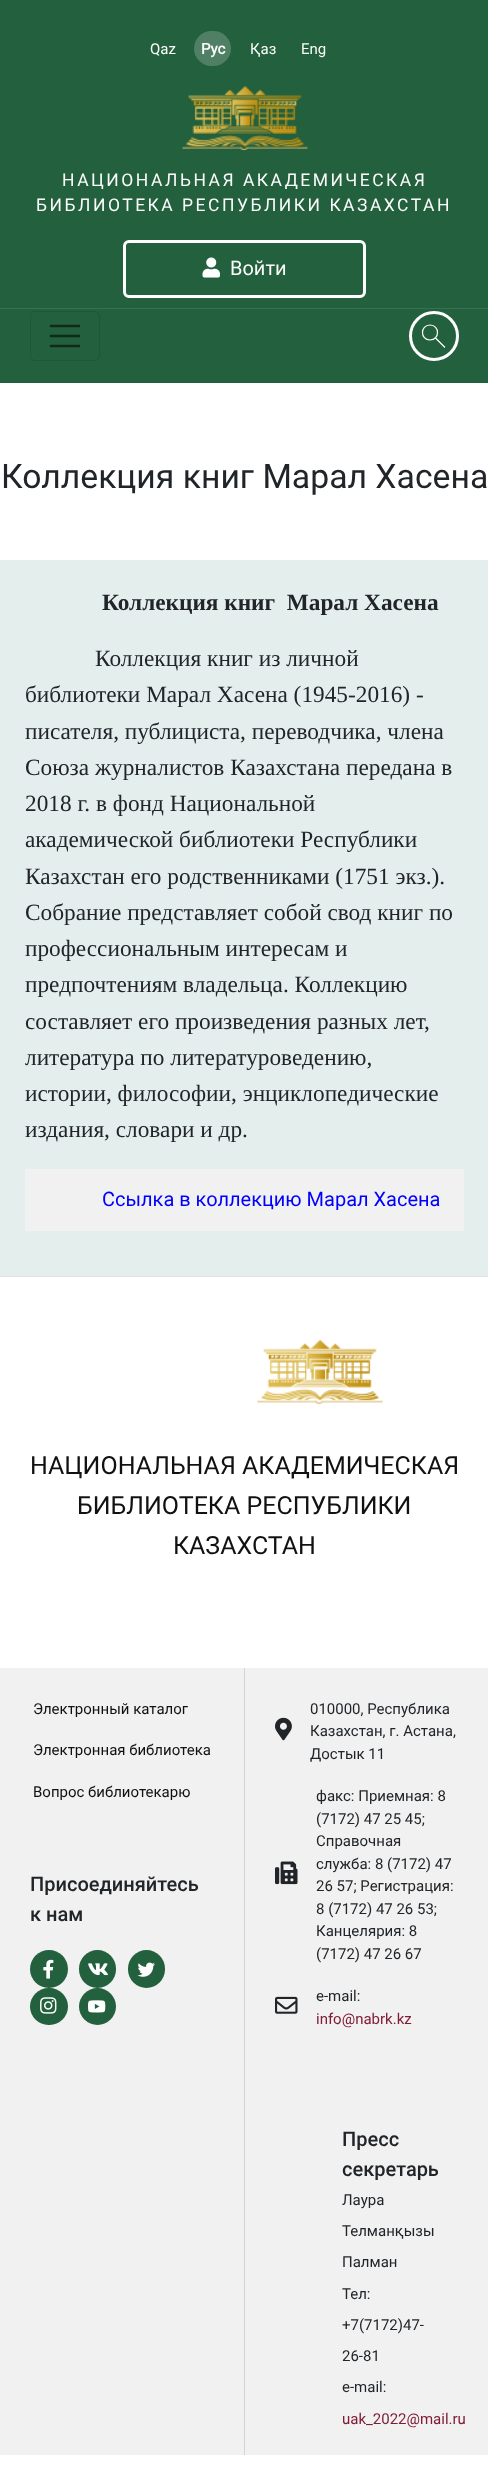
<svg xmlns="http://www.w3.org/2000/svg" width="488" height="2465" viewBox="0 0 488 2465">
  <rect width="100%" height="100%" fill="#ffffff"/>
  <rect x="0" y="0" width="488" height="383" fill="#23603e"/>
  <text x="150" y="54" font-family="Roboto" font-size="15" fill="#fcfcfc">Qaz</text>
  <rect x="194" y="31" width="37" height="35" rx="17.5" fill="#4f8065"/>
  <text x="201" y="54" font-family="Roboto" font-size="15" font-weight="bold" fill="#fcfcfc">Рус</text>
  <text x="250" y="54" font-family="Roboto" font-size="15" fill="#fcfcfc">Қаз</text>
  <text x="301" y="54" font-family="Roboto" font-size="15" fill="#fcfcfc">Eng</text>
  <image x="182" y="86" width="126" height="64" href="img1.png"/>
  <text x="62" y="186" font-family="Roboto" font-size="17.5" letter-spacing="2.5" fill="#fcfcfc">НАЦИОНАЛЬНАЯ АКАДЕМИЧЕСКАЯ</text>
  <text x="36" y="211" font-family="Roboto" font-size="17.5" letter-spacing="2.5" fill="#fcfcfc">БИБЛИОТЕКА РЕСПУБЛИКИ КАЗАХСТАН</text>
  <rect x="124.5" y="241.5" width="240" height="55" rx="4.5" fill="none" stroke="#ffffff" stroke-width="3"/>
  <image x="202" y="257" width="18" height="21" href="img2.png"/>
  <text x="230" y="275" font-family="Roboto" font-size="20" fill="#fcfcfc">Войти</text>
  <rect x="0" y="308" width="488" height="1" fill="#397051"/>
  <rect x="30.5" y="311.5" width="69" height="49" rx="4.5" fill="none" stroke="#205638"/>
  <path d="M51 326H79M51 336H79M51 346H79" fill="none" stroke="#102b1c" stroke-width="2.5" stroke-linecap="round"/>
  <path d="M430 340C440 340 440 325 430 325C420 325 420 340 430 340ZM445 347.5L435.5 338" fill="none" stroke="#ffffff" stroke-width="1.2"/>
  <circle cx="434" cy="336" r="23.5" fill="none" stroke="#ffffff" stroke-width="3"/>
  <text x="1" y="488" font-family="Roboto" font-size="33.75" fill="#212529">Коллекция книг Марал Хасена</text>
  <rect x="0" y="560" width="488" height="716" fill="#e4eeed"/>
  <text x="102" y="610" font-family="Liberation Serif" font-size="23.3" font-weight="bold" fill="#212529" xml:space="preserve">Коллекция книг  Марал Хасена</text>
  <text x="95" y="666" font-family="Liberation Serif" font-size="23.3" fill="#212529">Коллекция книг из личной</text>
  <text x="25" y="702" font-family="Liberation Serif" font-size="23.3" fill="#212529">библиотеки Марал Хасена (1945-2016) -</text>
  <text x="25" y="739" font-family="Liberation Serif" font-size="23.3" fill="#212529">писателя, публициста, переводчика, члена</text>
  <text x="25" y="775" font-family="Liberation Serif" font-size="23.3" fill="#212529">Союза журналистов Казахстана передана в</text>
  <text x="25" y="811" font-family="Liberation Serif" font-size="23.3" fill="#212529">2018 г. в фонд Национальной</text>
  <text x="25" y="847" font-family="Liberation Serif" font-size="23.3" fill="#212529">академической библиотеки Республики</text>
  <text x="25" y="884" font-family="Liberation Serif" font-size="23.3" fill="#212529">Казахстан его родственниками (1751 экз.).</text>
  <text x="25" y="920" font-family="Liberation Serif" font-size="23.3" fill="#212529">Собрание представляет собой свод книг по</text>
  <text x="25" y="956" font-family="Liberation Serif" font-size="23.3" fill="#212529">профессиональным интересам и</text>
  <text x="25" y="992" font-family="Liberation Serif" font-size="23.3" fill="#212529">предпочтениям владельца. Коллекцию</text>
  <text x="25" y="1029" font-family="Liberation Serif" font-size="23.3" fill="#212529">составляет его произведения разных лет,</text>
  <text x="25" y="1065" font-family="Liberation Serif" font-size="23.3" fill="#212529">литература по литературоведению,</text>
  <text x="25" y="1101" font-family="Liberation Serif" font-size="23.3" fill="#212529">истории, философии, энциклопедические</text>
  <text x="25" y="1137" font-family="Liberation Serif" font-size="23.3" fill="#212529">издания, словари и др.</text>
  <rect x="25" y="1169" width="439" height="62" fill="#f1f1f1"/>
  <text x="102" y="1206" font-family="Roboto" font-size="20" fill="#0000ff">Ссылка в коллекцию Марал Хасена</text>
  <rect x="0" y="1276" width="488" height="1" fill="#dee2e6"/>
  <image x="257" y="1340" width="126" height="64" href="img3.png"/>
  <text x="30" y="1474" font-family="Roboto" font-size="25" fill="#111111">НАЦИОНАЛЬНАЯ АКАДЕМИЧЕСКАЯ</text>
  <text x="77" y="1514" font-family="Roboto" font-size="25" fill="#111111">БИБЛИОТЕКА РЕСПУБЛИКИ</text>
  <text x="173" y="1554" font-family="Roboto" font-size="25" fill="#111111">КАЗАХСТАН</text>
  <rect x="0" y="1668" width="488" height="787" fill="#f1f1f1"/>
  <rect x="244" y="1668" width="1" height="787" fill="#d4d4d4"/>
  <text x="33" y="1714" font-family="Roboto" font-size="15" fill="#111111">Электронный каталог</text>
  <text x="33" y="1755" font-family="Roboto" font-size="15" fill="#111111">Электронная библиотека</text>
  <text x="33" y="1797" font-family="Roboto" font-size="15" fill="#111111">Вопрос библиотекарю</text>
  <text x="30" y="1891" font-family="Roboto" font-size="20" font-weight="500" fill="#212529">Присоединяйтесь</text>
  <text x="30" y="1921" font-family="Roboto" font-size="20" font-weight="500" fill="#212529">к нам</text>
  <circle cx="49" cy="1969" r="19" fill="#23603e"/>
  <image x="43" y="1959" width="11" height="20" href="img4.png"/>
  <rect x="79" y="1950" width="37" height="38" rx="18.5" fill="#23603e"/>
  <image x="88" y="1963" width="20" height="13" href="img5.png"/>
  <rect x="128" y="1950" width="37" height="38" rx="18.5" fill="#23603e"/>
  <image x="137" y="1962" width="18" height="15" href="img6.png"/>
  <rect x="30" y="1988" width="38" height="37" rx="18.5" fill="#23603e"/>
  <image x="40" y="1997" width="17" height="17" href="img7.png"/>
  <circle cx="97.5" cy="2006.5" r="18.5" fill="#23603e"/>
  <image x="88" y="2000" width="18" height="13" href="img8.png"/>
  <image x="275" y="1717" width="17" height="24" href="img9.png"/>
  <text x="310" y="1714" font-family="Roboto" font-size="15" fill="#212529">010000, Республика</text>
  <text x="310" y="1736" font-family="Roboto" font-size="15" fill="#212529">Казахстан, г. Астана,</text>
  <text x="310" y="1759" font-family="Roboto" font-size="15" fill="#212529">Достык 11</text>
  <image x="275" y="1861" width="23" height="24" href="img10.png"/>
  <text x="316" y="1801" font-family="Roboto" font-size="15" fill="#212529">факс: Приемная: 8</text>
  <text x="316" y="1824" font-family="Roboto" font-size="15" fill="#212529">(7172) 47 25 45;</text>
  <text x="316" y="1846" font-family="Roboto" font-size="15" fill="#212529">Справочная</text>
  <text x="316" y="1869" font-family="Roboto" font-size="15" fill="#212529">служба: 8 (7172) 47</text>
  <text x="316" y="1891" font-family="Roboto" font-size="15" fill="#212529">26 57; Регистрация:</text>
  <text x="316" y="1914" font-family="Roboto" font-size="15" fill="#212529">8 (7172) 47 26 53;</text>
  <text x="316" y="1936" font-family="Roboto" font-size="15" fill="#212529">Канцелярия: 8</text>
  <text x="316" y="1959" font-family="Roboto" font-size="15" fill="#212529">(7172) 47 26 67</text>
  <image x="275" y="1996" width="23" height="18" href="img11.png"/>
  <text x="316" y="2001" font-family="Roboto" font-size="15" fill="#212529">e-mail:</text>
  <text x="316" y="2024" font-family="Roboto" font-size="15" fill="#811c37">info@nabrk.kz</text>
  <text x="342" y="2146" font-family="Roboto" font-size="20" font-weight="500" fill="#212529">Пресс</text>
  <text x="342" y="2176" font-family="Roboto" font-size="20" font-weight="500" fill="#212529">секретарь</text>
  <text x="342" y="2205" font-family="Roboto" font-size="15" fill="#212529">Лаура</text>
  <text x="342" y="2236" font-family="Roboto" font-size="15" fill="#212529">Телманқызы</text>
  <text x="342" y="2267" font-family="Roboto" font-size="15" fill="#212529">Палман</text>
  <text x="342" y="2299" font-family="Roboto" font-size="15" fill="#212529">Тел:</text>
  <text x="342" y="2330" font-family="Roboto" font-size="15" fill="#212529">+7(7172)47-</text>
  <text x="342" y="2361" font-family="Roboto" font-size="15" fill="#212529">26-81</text>
  <text x="342" y="2392" font-family="Roboto" font-size="15" fill="#212529">e-mail:</text>
  <text x="342" y="2424" font-family="Roboto" font-size="15" fill="#811c37">uak_2022@mail.ru</text>
</svg>
